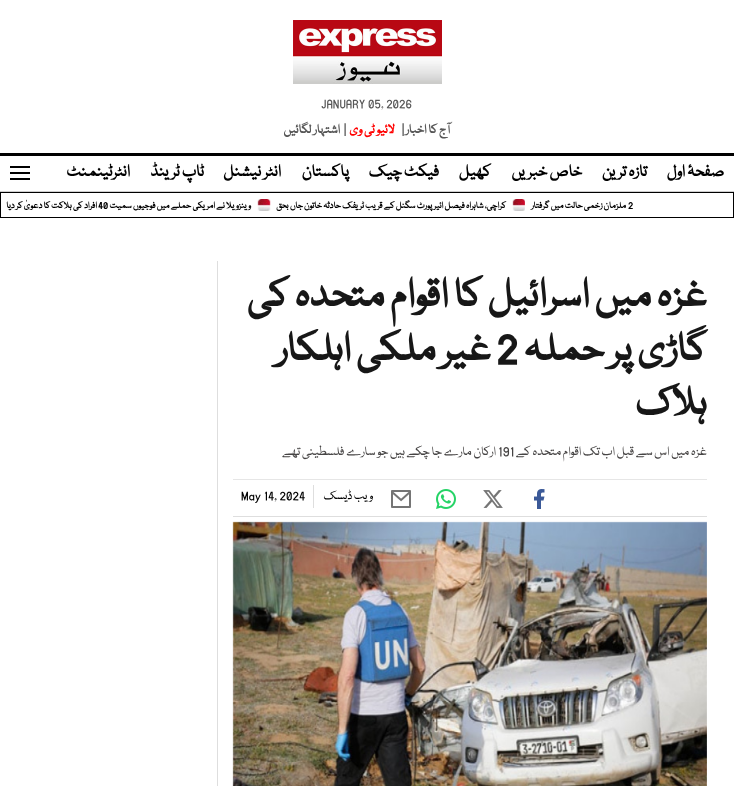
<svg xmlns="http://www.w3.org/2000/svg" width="734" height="786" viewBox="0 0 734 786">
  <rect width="100%" height="100%" fill="#ffffff"/>
  <image x="293" y="20" width="149" height="64" href="img1.png"/>
  <text x="321" y="107" font-family="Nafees" font-size="13" fill="#575757">JANUARY 05, 2026</text>
  <text x="450" y="133" font-family="Nafees" font-size="14" font-weight="bold" direction="rtl" fill="#575757">آج کا اخبار</text>
  <text x="402" y="133" font-family="Nafees" font-size="14" font-weight="bold" fill="#575757">|</text>
  <text x="395" y="133" font-family="Nafees" font-size="14" font-weight="bold" direction="rtl" fill="#ff0000">لائیو ٹی وی</text>
  <text x="344" y="133" font-family="Nafees" font-size="14" font-weight="bold" fill="#575757">|</text>
  <text x="340" y="133" font-family="Nafees" font-size="14" font-weight="bold" direction="rtl" fill="#575757">اشتہار لگائیں</text>
  <rect x="0" y="153" width="734" height="3" fill="#000000"/>
  <rect x="0" y="191" width="734" height="1" fill="#cecece"/>
  <text x="724" y="176" font-family="Nafees" font-size="18" font-weight="bold" direction="rtl" fill="#000000">صفحۂ اول</text>
  <text x="647" y="176" font-family="Nafees" font-size="18" font-weight="bold" direction="rtl" fill="#000000">تازہ ترین</text>
  <text x="582" y="176" font-family="Nafees" font-size="18" font-weight="bold" direction="rtl" fill="#000000">خاص خبریں</text>
  <text x="491" y="176" font-family="Nafees" font-size="18" font-weight="bold" direction="rtl" fill="#000000">کھیل</text>
  <text x="439" y="176" font-family="Nafees" font-size="18" font-weight="bold" direction="rtl" fill="#000000">فیکٹ چیک</text>
  <text x="349" y="176" font-family="Nafees" font-size="18" font-weight="bold" direction="rtl" fill="#000000">پاکستان</text>
  <text x="281" y="176" font-family="Nafees" font-size="18" font-weight="bold" direction="rtl" fill="#000000">انٹر نیشنل</text>
  <text x="204" y="176" font-family="Nafees" font-size="18" font-weight="bold" direction="rtl" fill="#000000">ٹاپ ٹرینڈ</text>
  <text x="130" y="176" font-family="Nafees" font-size="18" font-weight="bold" direction="rtl" fill="#000000">انٹرٹینمنٹ</text>
  <rect x="10" y="166" width="20" height="2" fill="#000000"/>
  <rect x="10" y="172" width="20" height="2" fill="#000000"/>
  <rect x="10" y="178" width="20" height="2" fill="#000000"/>
  <rect x="0.5" y="192.5" width="733" height="25" fill="none" stroke="#000000"/>
  <text x="628" y="208" font-family="Nafees" font-size="10" font-weight="bold" fill="#000000">2</text>
  <text x="626" y="208" font-family="Nafees" font-size="10" font-weight="bold" direction="rtl" fill="#000000">ملزمان زخمی حالت میں گرفتار</text>
  <image x="512" y="199" width="13" height="12" href="img2.png"/>
  <text x="506" y="208" font-family="Nafees" font-size="10" font-weight="bold" direction="rtl" fill="#000000">کراچی، شاہراہ فیصل ائیرپورٹ سگنل کے قریب ٹریفک حادثہ خاتون جاں بحق</text>
  <image x="257" y="199" width="14" height="12" href="img3.png"/>
  <text x="251" y="208" font-family="Nafees" font-size="10" font-weight="bold" direction="rtl" fill="#000000">وینزویلا نے امریکی حملے میں فوجیوں سمیت</text>
  <text x="98" y="208" font-family="Nafees" font-size="10" font-weight="bold" fill="#000000">40</text>
  <text x="97" y="208" font-family="Nafees" font-size="10" font-weight="bold" direction="rtl" fill="#000000">افراد کی ہلاکت کا دعویٰ کر دیا</text>
  <rect x="217" y="261" width="1" height="525" fill="#dedede"/>
  <text x="707" y="306" font-family="Nafees" font-size="44" font-weight="bold" direction="rtl" fill="#171717">غزہ میں اسرائیل کا اقوام متحدہ کی</text>
  <text x="707" y="360" font-family="Nafees" font-size="44" font-weight="bold" direction="rtl" fill="#171717">گاڑی پر حملہ</text>
  <text x="496" y="360" font-family="Nafees" font-size="44" font-weight="bold" fill="#171717">2</text>
  <text x="491" y="360" font-family="Nafees" font-size="44" font-weight="bold" direction="rtl" fill="#171717">غیر ملکی اہلکار</text>
  <text x="707" y="414" font-family="Nafees" font-size="44" font-weight="bold" direction="rtl" fill="#171717">ہلاک</text>
  <text x="707" y="455" font-family="Nafees" font-size="14" direction="rtl" fill="#464444">غزہ میں اس سے قبل اب تک اقوام متحدہ کے</text>
  <text x="498" y="455" font-family="Nafees" font-size="14" fill="#464444">191</text>
  <text x="496" y="455" font-family="Nafees" font-size="14" direction="rtl" fill="#464444">ارکان مارے جا چکے ہیں جو سارے فلسطینی تھے</text>
  <rect x="233" y="479" width="474" height="1" fill="#e6e6e6"/>
  <rect x="233" y="516" width="474" height="1" fill="#dedede"/>
  <image x="534" y="489" width="11" height="20" href="img4.png"/>
  <image x="483" y="490" width="20" height="18" href="img5.png"/>
  <image x="436" y="489" width="20" height="20" href="img6.png"/>
  <image x="391" y="490" width="20" height="18" href="img7.png"/>
  <text x="373" y="499" font-family="Nafees" font-size="13" direction="rtl" fill="#000000">ویب ڈیسک</text>
  <rect x="313" y="485" width="1" height="23" fill="#dedede"/>
  <text x="241" y="499" font-family="Nafees" font-size="13" fill="#000000">May 14, 2024</text>
  <image x="232" y="521" width="475" height="265" href="img8.png"/>
</svg>
